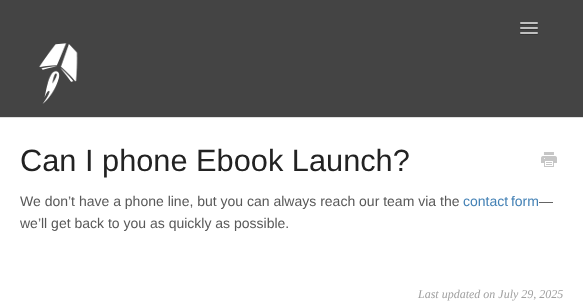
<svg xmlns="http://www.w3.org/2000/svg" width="583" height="302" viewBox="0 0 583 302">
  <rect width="100%" height="100%" fill="#444444"/>
  <path d="M520 23.5C519 25.5 523.5 25 523.5 25H534.5C534.5 25 539 25.5 538 23.5C537 24.5 530.5 24 529 24C527.5 24 521 24.5 520 23.5Z" fill="#333333"/>
  <rect x="520" y="22" width="18" height="2" rx="1" fill="#c0c0c0"/>
  <path d="M520 28.5C519 30.5 523.5 30 523.5 30H534.5C534.5 30 539 30.5 538 28.5C537 29.5 530.5 29 529 29C527.5 29 521 29.5 520 28.5Z" fill="#333333"/>
  <rect x="520" y="27" width="18" height="2" rx="1" fill="#c0c0c0"/>
  <path d="M520 33.5C519 35.5 523.5 35 523.5 35H534.5C534.5 35 539 35.5 538 33.5C537 34.5 530.5 34 529 34C527.5 34 521 34.5 520 33.5Z" fill="#333333"/>
  <rect x="520" y="32" width="18" height="2" rx="1" fill="#c0c0c0"/>
  <image x="39" y="43" width="39" height="61" href="img1.png"/>
  <rect x="0" y="118" width="583" height="184" fill="#ffffff"/>
  <rect x="0" y="117" width="583" height="1" fill="#dedede"/>
  <text x="20" y="171" font-family="Liberation Sans" font-size="30.75" fill="#222222">Can I phone Ebook Launch?</text>
  <image x="541" y="152" width="16" height="15" href="img2.png"/>
  <text x="20" y="206" font-family="Liberation Sans" font-size="14" fill="#585858">We don’t have a phone line, but you can always reach our team via the</text>
  <text x="463" y="206" font-family="Liberation Sans" font-size="14" fill="#4381b5">contact form</text>
  <text x="539" y="206" font-family="Liberation Sans" font-size="14" fill="#585858">—</text>
  <text x="20" y="228" font-family="Liberation Sans" font-size="14" fill="#585858">we’ll get back to you as quickly as possible.</text>
  <text x="418" y="298" font-family="Liberation Serif" font-size="12" font-style="italic" fill="#a0a0a0">Last updated on July 29, 2025</text>
</svg>
